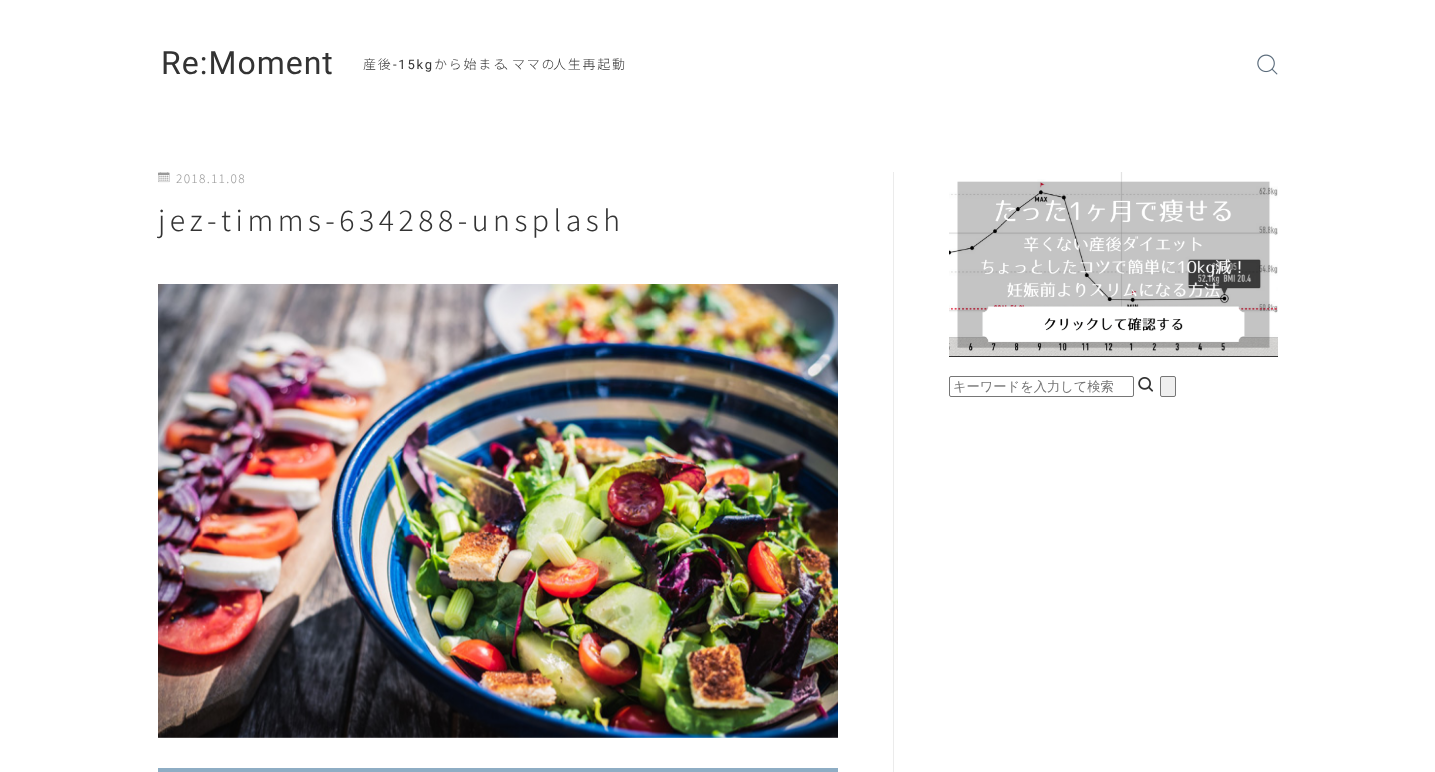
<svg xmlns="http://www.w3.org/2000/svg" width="1435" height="772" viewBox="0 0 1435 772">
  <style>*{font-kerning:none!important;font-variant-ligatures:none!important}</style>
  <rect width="100%" height="100%" fill="#ffffff"/>
  <text x="161" y="74" font-family="Roboto" font-size="32" letter-spacing="1" fill="#333333">Re:Moment</text>
  <text x="363" y="69" font-family="Noto Sans JP" font-size="13" font-weight="300" letter-spacing="1.75" fill="#333333">産後</text>
  <text x="393" y="69" font-family="Roboto" font-size="13" letter-spacing="1.75" fill="#333333">-15kg</text>
  <text x="434" y="69" font-family="Noto Sans JP" font-size="13" font-weight="300" letter-spacing="1.75" fill="#333333">から始まる</text>
  <text x="503" y="69" font-family="Noto Sans JP" font-size="13" font-weight="300" letter-spacing="1.75" fill="#333333">、</text>
  <text x="512" y="69" font-family="Noto Sans JP" font-size="13" font-weight="300" letter-spacing="1.75" fill="#333333">ママの</text>
  <text x="553" y="69" font-family="Noto Sans JP" font-size="13" font-weight="300" letter-spacing="1.75" fill="#333333">人生再起動</text>
  <image x="1257" y="54" width="21" height="21" href="img1.png"/>
  <image x="158" y="172" width="12" height="11" href="img2.png"/>
  <text x="176" y="183" font-family="Noto Sans JP" font-size="12" font-weight="300" letter-spacing="1.25" fill="#999999">2018.11.08</text>
  <text x="158" y="231" font-family="Noto Sans JP" font-size="28.5" font-weight="300" letter-spacing="4.5" fill="#333333">jez-timms-634288-unsplash</text>
  <image x="158" y="284" width="680" height="454" href="img3.png"/>
  <rect x="158" y="768" width="680" height="4" fill="#8eadc4"/>
  <rect x="893" y="172" width="1" height="600" fill="#ebebeb"/>
  <image x="949" y="172" width="329" height="185" href="img4.png"/>
  <rect x="949.5" y="376.5" width="184" height="20" rx="1.5" fill="none" stroke="#767676"/>
  <text x="953" y="391" font-family="WenQuanYi Zen Hei" font-size="13.25" font-weight="500" fill="#757575">キーワードを入力して検索</text>
  <image x="1138" y="377" width="16" height="15" href="img5.png"/>
  <rect x="1160.5" y="376.5" width="15" height="20" rx="1.5" fill="#efefef" stroke="#767676"/>
</svg>
